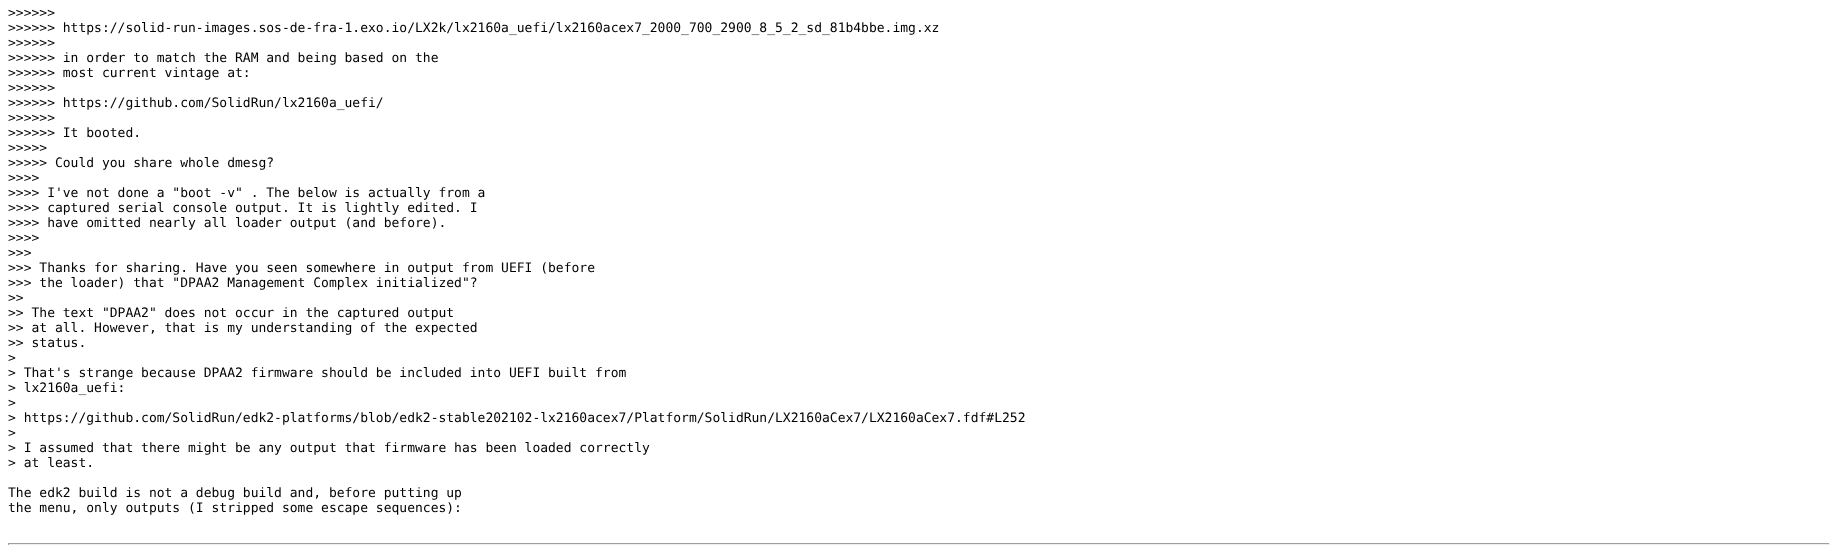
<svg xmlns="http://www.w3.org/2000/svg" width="1838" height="553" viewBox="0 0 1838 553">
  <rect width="100%" height="100%" fill="#ffffff"/>
  <text x="8" y="17" font-family="DejaVu Sans Mono" font-size="13" fill="#000000">&gt;&gt;&gt;&gt;&gt;&gt;</text>
  <text x="8" y="32" font-family="DejaVu Sans Mono" font-size="13" fill="#000000">&gt;&gt;&gt;&gt;&gt;&gt; https://solid-run-images.sos-de-fra-1.exo.io/LX2k/lx2160a_uefi/lx2160acex7_2000_700_2900_8_5_2_sd_81b4bbe.img.xz</text>
  <text x="8" y="47" font-family="DejaVu Sans Mono" font-size="13" fill="#000000">&gt;&gt;&gt;&gt;&gt;&gt;</text>
  <text x="8" y="62" font-family="DejaVu Sans Mono" font-size="13" fill="#000000">&gt;&gt;&gt;&gt;&gt;&gt; in order to match the RAM and being based on the</text>
  <text x="8" y="77" font-family="DejaVu Sans Mono" font-size="13" fill="#000000">&gt;&gt;&gt;&gt;&gt;&gt; most current vintage at:</text>
  <text x="8" y="92" font-family="DejaVu Sans Mono" font-size="13" fill="#000000">&gt;&gt;&gt;&gt;&gt;&gt;</text>
  <text x="8" y="107" font-family="DejaVu Sans Mono" font-size="13" fill="#000000">&gt;&gt;&gt;&gt;&gt;&gt; https://github.com/SolidRun/lx2160a_uefi/</text>
  <text x="8" y="122" font-family="DejaVu Sans Mono" font-size="13" fill="#000000">&gt;&gt;&gt;&gt;&gt;&gt;</text>
  <text x="8" y="137" font-family="DejaVu Sans Mono" font-size="13" fill="#000000">&gt;&gt;&gt;&gt;&gt;&gt; It booted.</text>
  <text x="8" y="152" font-family="DejaVu Sans Mono" font-size="13" fill="#000000">&gt;&gt;&gt;&gt;&gt;</text>
  <text x="8" y="167" font-family="DejaVu Sans Mono" font-size="13" fill="#000000">&gt;&gt;&gt;&gt;&gt; Could you share whole dmesg?</text>
  <text x="8" y="182" font-family="DejaVu Sans Mono" font-size="13" fill="#000000">&gt;&gt;&gt;&gt;</text>
  <text x="8" y="197" font-family="DejaVu Sans Mono" font-size="13" fill="#000000">&gt;&gt;&gt;&gt; I've not done a "boot -v" . The below is actually from a</text>
  <text x="8" y="212" font-family="DejaVu Sans Mono" font-size="13" fill="#000000">&gt;&gt;&gt;&gt; captured serial console output. It is lightly edited. I</text>
  <text x="8" y="227" font-family="DejaVu Sans Mono" font-size="13" fill="#000000">&gt;&gt;&gt;&gt; have omitted nearly all loader output (and before).</text>
  <text x="8" y="242" font-family="DejaVu Sans Mono" font-size="13" fill="#000000">&gt;&gt;&gt;&gt;</text>
  <text x="8" y="257" font-family="DejaVu Sans Mono" font-size="13" fill="#000000">&gt;&gt;&gt;</text>
  <text x="8" y="272" font-family="DejaVu Sans Mono" font-size="13" fill="#000000">&gt;&gt;&gt; Thanks for sharing. Have you seen somewhere in output from UEFI (before</text>
  <text x="8" y="287" font-family="DejaVu Sans Mono" font-size="13" fill="#000000">&gt;&gt;&gt; the loader) that "DPAA2 Management Complex initialized"?</text>
  <text x="8" y="302" font-family="DejaVu Sans Mono" font-size="13" fill="#000000">&gt;&gt;</text>
  <text x="8" y="317" font-family="DejaVu Sans Mono" font-size="13" fill="#000000">&gt;&gt; The text "DPAA2" does not occur in the captured output</text>
  <text x="8" y="332" font-family="DejaVu Sans Mono" font-size="13" fill="#000000">&gt;&gt; at all. However, that is my understanding of the expected</text>
  <text x="8" y="347" font-family="DejaVu Sans Mono" font-size="13" fill="#000000">&gt;&gt; status.</text>
  <text x="8" y="362" font-family="DejaVu Sans Mono" font-size="13" fill="#000000">&gt;</text>
  <text x="8" y="377" font-family="DejaVu Sans Mono" font-size="13" fill="#000000">&gt; That's strange because DPAA2 firmware should be included into UEFI built from</text>
  <text x="8" y="392" font-family="DejaVu Sans Mono" font-size="13" fill="#000000">&gt; lx2160a_uefi:</text>
  <text x="8" y="407" font-family="DejaVu Sans Mono" font-size="13" fill="#000000">&gt;</text>
  <text x="8" y="422" font-family="DejaVu Sans Mono" font-size="13" fill="#000000">&gt; https://github.com/SolidRun/edk2-platforms/blob/edk2-stable202102-lx2160acex7/Platform/SolidRun/LX2160aCex7/LX2160aCex7.fdf#L252</text>
  <text x="8" y="437" font-family="DejaVu Sans Mono" font-size="13" fill="#000000">&gt;</text>
  <text x="8" y="452" font-family="DejaVu Sans Mono" font-size="13" fill="#000000">&gt; I assumed that there might be any output that firmware has been loaded correctly</text>
  <text x="8" y="467" font-family="DejaVu Sans Mono" font-size="13" fill="#000000">&gt; at least.</text>
  <text x="8" y="497" font-family="DejaVu Sans Mono" font-size="13" fill="#000000">The edk2 build is not a debug build and, before putting up</text>
  <text x="8" y="512" font-family="DejaVu Sans Mono" font-size="13" fill="#000000">the menu, only outputs (I stripped some escape sequences):</text>
  <rect x="8" y="543" width="1822" height="1" fill="#9f9f9f"/>
  <rect x="1829" y="543" width="1" height="2" fill="#eeeeee"/>
  <rect x="8" y="544" width="1822" height="1" fill="#eeeeee"/>
  <rect x="8" y="543" width="1" height="2" fill="#9f9f9f"/>
</svg>
